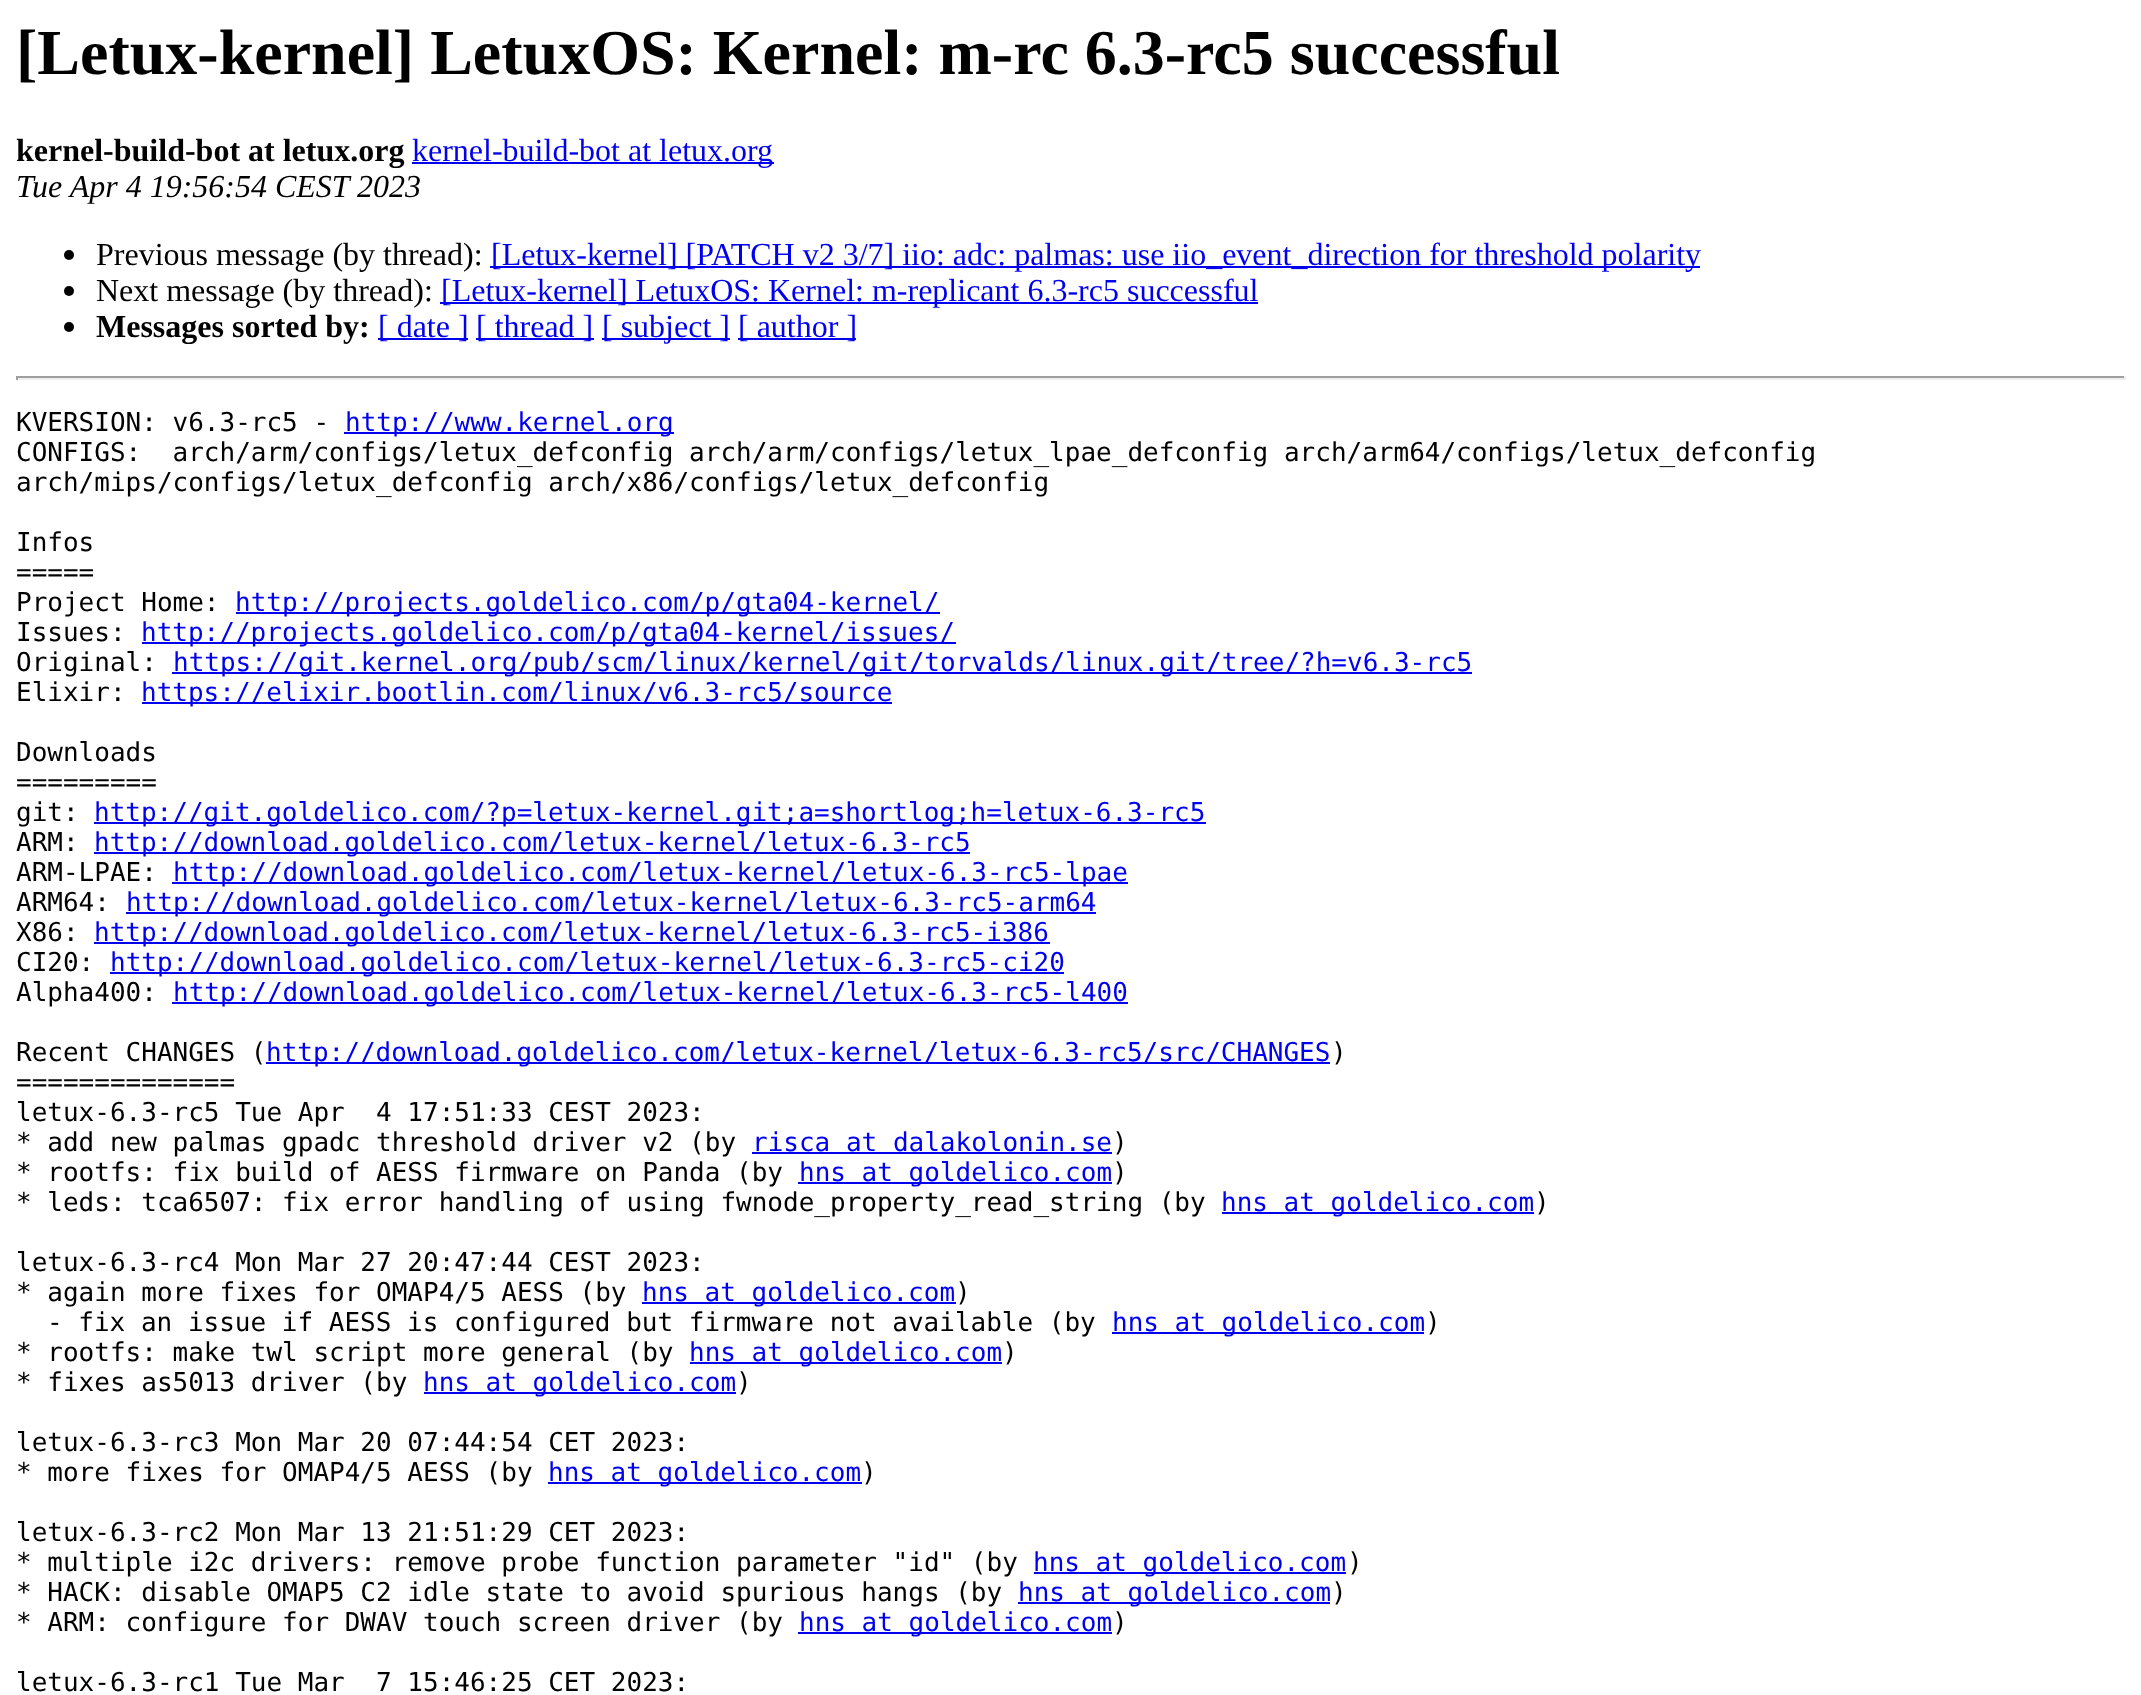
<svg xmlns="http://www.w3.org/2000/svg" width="2141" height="1695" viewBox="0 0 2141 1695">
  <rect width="100%" height="100%" fill="#ffffff"/>
  <text x="16" y="74" font-family="Liberation Serif" font-size="64" font-weight="bold" fill="#000000">[Letux-kernel] LetuxOS: Kernel: m-rc 6.3-rc5 successful</text>
  <text x="16" y="161" font-family="Liberation Serif" font-size="32" font-weight="bold" fill="#000000">kernel-build-bot at letux.org</text>
  <rect x="412" y="162" width="362" height="2" fill="#0000ee"/>
  <text x="412" y="161" font-family="Liberation Serif" font-size="32" fill="#0000ee">kernel-build-bot at letux.org</text>
  <text x="16" y="197" font-family="Liberation Serif" font-size="32" font-style="italic" fill="#000000">Tue Apr 4 19:56:54 CEST 2023</text>
  <circle cx="69" cy="255" r="5" fill="#000000"/>
  <text x="96" y="265" font-family="Liberation Serif" font-size="32" fill="#000000">Previous message (by thread):</text>
  <rect x="490" y="266" width="1210" height="2" fill="#0000ee"/>
  <text x="491" y="265" font-family="Liberation Serif" font-size="32" fill="#0000ee">[Letux-kernel] [PATCH v2 3/7] iio: adc: palmas: use iio_event_direction for threshold polarity</text>
  <circle cx="69" cy="291" r="5" fill="#000000"/>
  <text x="96" y="301" font-family="Liberation Serif" font-size="32" fill="#000000">Next message (by thread):</text>
  <rect x="440" y="302" width="818" height="2" fill="#0000ee"/>
  <text x="441" y="301" font-family="Liberation Serif" font-size="32" fill="#0000ee">[Letux-kernel] LetuxOS: Kernel: m-replicant 6.3-rc5 successful</text>
  <circle cx="69" cy="327" r="5" fill="#000000"/>
  <text x="96" y="337" font-family="Liberation Serif" font-size="32" font-weight="bold" fill="#000000">Messages sorted by:</text>
  <rect x="378" y="338" width="90" height="2" fill="#0000ee"/>
  <text x="378" y="337" font-family="Liberation Serif" font-size="32" fill="#0000ee">[ date ]</text>
  <rect x="476" y="338" width="118" height="2" fill="#0000ee"/>
  <text x="476" y="337" font-family="Liberation Serif" font-size="32" fill="#0000ee">[ thread ]</text>
  <rect x="602" y="338" width="128" height="2" fill="#0000ee"/>
  <text x="602" y="337" font-family="Liberation Serif" font-size="32" fill="#0000ee">[ subject ]</text>
  <rect x="738" y="338" width="118" height="2" fill="#0000ee"/>
  <text x="738" y="337" font-family="Liberation Serif" font-size="32" fill="#0000ee">[ author ]</text>
  <rect x="16" y="376" width="2110" height="2" fill="#9f9f9f"/>
  <rect x="2124" y="376" width="2" height="4" fill="#eeeeee"/>
  <rect x="16" y="378" width="2110" height="2" fill="#eeeeee"/>
  <rect x="16" y="376" width="2" height="4" fill="#9f9f9f"/>
  <text x="16" y="431" font-family="DejaVu Sans Mono" font-size="26" fill="#000000">KVERSION: v6.3-rc5 -</text>
  <rect x="344" y="432" width="330" height="2" fill="#0000ee"/>
  <text x="345" y="431" font-family="DejaVu Sans Mono" font-size="26" fill="#0000ee">http://www.kernel.org</text>
  <text x="16" y="461" font-family="DejaVu Sans Mono" font-size="26" fill="#000000" xml:space="preserve">CONFIGS:  arch/arm/configs/letux_defconfig arch/arm/configs/letux_lpae_defconfig arch/arm64/configs/letux_defconfig</text>
  <text x="16" y="491" font-family="DejaVu Sans Mono" font-size="26" fill="#000000">arch/mips/configs/letux_defconfig arch/x86/configs/letux_defconfig</text>
  <text x="16" y="551" font-family="DejaVu Sans Mono" font-size="26" fill="#000000">Infos</text>
  <text x="16" y="581" font-family="DejaVu Sans Mono" font-size="26" fill="#000000">=====</text>
  <text x="16" y="611" font-family="DejaVu Sans Mono" font-size="26" fill="#000000">Project Home:</text>
  <rect x="236" y="612" width="704" height="2" fill="#0000ee"/>
  <text x="235" y="611" font-family="DejaVu Sans Mono" font-size="26" fill="#0000ee">http://projects.goldelico.com/p/gta04-kernel/</text>
  <text x="16" y="641" font-family="DejaVu Sans Mono" font-size="26" fill="#000000">Issues:</text>
  <rect x="142" y="642" width="814" height="2" fill="#0000ee"/>
  <text x="141" y="641" font-family="DejaVu Sans Mono" font-size="26" fill="#0000ee">http://projects.goldelico.com/p/gta04-kernel/issues/</text>
  <text x="16" y="671" font-family="DejaVu Sans Mono" font-size="26" fill="#000000">Original:</text>
  <rect x="172" y="672" width="1300" height="2" fill="#0000ee"/>
  <text x="173" y="671" font-family="DejaVu Sans Mono" font-size="26" fill="#0000ee">https://git.kernel.org/pub/scm/linux/kernel/git/torvalds/linux.git/tree/?h=v6.3-rc5</text>
  <text x="16" y="701" font-family="DejaVu Sans Mono" font-size="26" fill="#000000">Elixir:</text>
  <rect x="142" y="702" width="750" height="2" fill="#0000ee"/>
  <text x="141" y="701" font-family="DejaVu Sans Mono" font-size="26" fill="#0000ee">https://elixir.bootlin.com/linux/v6.3-rc5/source</text>
  <text x="16" y="761" font-family="DejaVu Sans Mono" font-size="26" fill="#000000">Downloads</text>
  <text x="16" y="791" font-family="DejaVu Sans Mono" font-size="26" fill="#000000">=========</text>
  <text x="16" y="821" font-family="DejaVu Sans Mono" font-size="26" fill="#000000">git:</text>
  <rect x="94" y="822" width="1112" height="2" fill="#0000ee"/>
  <text x="94" y="821" font-family="DejaVu Sans Mono" font-size="26" fill="#0000ee">http://git.goldelico.com/?p=letux-kernel.git;a=shortlog;h=letux-6.3-rc5</text>
  <text x="16" y="851" font-family="DejaVu Sans Mono" font-size="26" fill="#000000">ARM:</text>
  <rect x="94" y="852" width="876" height="2" fill="#0000ee"/>
  <text x="94" y="851" font-family="DejaVu Sans Mono" font-size="26" fill="#0000ee">http://download.goldelico.com/letux-kernel/letux-6.3-rc5</text>
  <text x="16" y="881" font-family="DejaVu Sans Mono" font-size="26" fill="#000000">ARM-LPAE:</text>
  <rect x="172" y="882" width="956" height="2" fill="#0000ee"/>
  <text x="173" y="881" font-family="DejaVu Sans Mono" font-size="26" fill="#0000ee">http://download.goldelico.com/letux-kernel/letux-6.3-rc5-lpae</text>
  <text x="16" y="911" font-family="DejaVu Sans Mono" font-size="26" fill="#000000">ARM64:</text>
  <rect x="126" y="912" width="970" height="2" fill="#0000ee"/>
  <text x="126" y="911" font-family="DejaVu Sans Mono" font-size="26" fill="#0000ee">http://download.goldelico.com/letux-kernel/letux-6.3-rc5-arm64</text>
  <text x="16" y="941" font-family="DejaVu Sans Mono" font-size="26" fill="#000000">X86:</text>
  <rect x="94" y="942" width="956" height="2" fill="#0000ee"/>
  <text x="94" y="941" font-family="DejaVu Sans Mono" font-size="26" fill="#0000ee">http://download.goldelico.com/letux-kernel/letux-6.3-rc5-i386</text>
  <text x="16" y="971" font-family="DejaVu Sans Mono" font-size="26" fill="#000000">CI20:</text>
  <rect x="110" y="972" width="954" height="2" fill="#0000ee"/>
  <text x="110" y="971" font-family="DejaVu Sans Mono" font-size="26" fill="#0000ee">http://download.goldelico.com/letux-kernel/letux-6.3-rc5-ci20</text>
  <text x="16" y="1001" font-family="DejaVu Sans Mono" font-size="26" fill="#000000">Alpha400:</text>
  <rect x="172" y="1002" width="956" height="2" fill="#0000ee"/>
  <text x="173" y="1001" font-family="DejaVu Sans Mono" font-size="26" fill="#0000ee">http://download.goldelico.com/letux-kernel/letux-6.3-rc5-l400</text>
  <text x="16" y="1061" font-family="DejaVu Sans Mono" font-size="26" fill="#000000">Recent CHANGES (</text>
  <rect x="266" y="1062" width="1064" height="2" fill="#0000ee"/>
  <text x="266" y="1061" font-family="DejaVu Sans Mono" font-size="26" fill="#0000ee">http://download.goldelico.com/letux-kernel/letux-6.3-rc5/src/CHANGES</text>
  <text x="1331" y="1061" font-family="DejaVu Sans Mono" font-size="26" fill="#000000">)</text>
  <text x="16" y="1091" font-family="DejaVu Sans Mono" font-size="26" fill="#000000">==============</text>
  <text x="16" y="1121" font-family="DejaVu Sans Mono" font-size="26" fill="#000000" xml:space="preserve">letux-6.3-rc5 Tue Apr  4 17:51:33 CEST 2023:</text>
  <text x="16" y="1151" font-family="DejaVu Sans Mono" font-size="26" fill="#000000">* add new palmas gpadc threshold driver v2 (by</text>
  <text x="752" y="1151" font-family="DejaVu Sans Mono" font-size="26" fill="#0000ee">risca at dalakolonin.se</text>
  <rect x="752" y="1152" width="360" height="2" fill="#0000ee"/>
  <text x="1112" y="1151" font-family="DejaVu Sans Mono" font-size="26" fill="#000000">)</text>
  <text x="16" y="1181" font-family="DejaVu Sans Mono" font-size="26" fill="#000000">* rootfs: fix build of AESS firmware on Panda (by</text>
  <rect x="798" y="1182" width="314" height="2" fill="#0000ee"/>
  <text x="799" y="1181" font-family="DejaVu Sans Mono" font-size="26" fill="#0000ee">hns at goldelico.com</text>
  <text x="1112" y="1181" font-family="DejaVu Sans Mono" font-size="26" fill="#000000">)</text>
  <text x="16" y="1211" font-family="DejaVu Sans Mono" font-size="26" fill="#000000">* leds: tca6507: fix error handling of using fwnode_property_read_string (by</text>
  <rect x="1222" y="1212" width="312" height="2" fill="#0000ee"/>
  <text x="1221" y="1211" font-family="DejaVu Sans Mono" font-size="26" fill="#0000ee">hns at goldelico.com</text>
  <text x="1534" y="1211" font-family="DejaVu Sans Mono" font-size="26" fill="#000000">)</text>
  <text x="16" y="1271" font-family="DejaVu Sans Mono" font-size="26" fill="#000000">letux-6.3-rc4 Mon Mar 27 20:47:44 CEST 2023:</text>
  <text x="16" y="1301" font-family="DejaVu Sans Mono" font-size="26" fill="#000000">* again more fixes for OMAP4/5 AESS (by</text>
  <rect x="642" y="1302" width="314" height="2" fill="#0000ee"/>
  <text x="642" y="1301" font-family="DejaVu Sans Mono" font-size="26" fill="#0000ee">hns at goldelico.com</text>
  <text x="955" y="1301" font-family="DejaVu Sans Mono" font-size="26" fill="#000000">)</text>
  <text x="47" y="1331" font-family="DejaVu Sans Mono" font-size="26" fill="#000000">- fix an issue if AESS is configured but firmware not available (by</text>
  <rect x="1112" y="1332" width="312" height="2" fill="#0000ee"/>
  <text x="1112" y="1331" font-family="DejaVu Sans Mono" font-size="26" fill="#0000ee">hns at goldelico.com</text>
  <text x="1425" y="1331" font-family="DejaVu Sans Mono" font-size="26" fill="#000000">)</text>
  <text x="16" y="1361" font-family="DejaVu Sans Mono" font-size="26" fill="#000000">* rootfs: make twl script more general (by</text>
  <rect x="690" y="1362" width="312" height="2" fill="#0000ee"/>
  <text x="689" y="1361" font-family="DejaVu Sans Mono" font-size="26" fill="#0000ee">hns at goldelico.com</text>
  <text x="1002" y="1361" font-family="DejaVu Sans Mono" font-size="26" fill="#000000">)</text>
  <text x="16" y="1391" font-family="DejaVu Sans Mono" font-size="26" fill="#000000">* fixes as5013 driver (by</text>
  <rect x="424" y="1392" width="312" height="2" fill="#0000ee"/>
  <text x="423" y="1391" font-family="DejaVu Sans Mono" font-size="26" fill="#0000ee">hns at goldelico.com</text>
  <text x="736" y="1391" font-family="DejaVu Sans Mono" font-size="26" fill="#000000">)</text>
  <text x="16" y="1451" font-family="DejaVu Sans Mono" font-size="26" fill="#000000">letux-6.3-rc3 Mon Mar 20 07:44:54 CET 2023:</text>
  <text x="16" y="1481" font-family="DejaVu Sans Mono" font-size="26" fill="#000000">* more fixes for OMAP4/5 AESS (by</text>
  <rect x="548" y="1482" width="314" height="2" fill="#0000ee"/>
  <text x="548" y="1481" font-family="DejaVu Sans Mono" font-size="26" fill="#0000ee">hns at goldelico.com</text>
  <text x="861" y="1481" font-family="DejaVu Sans Mono" font-size="26" fill="#000000">)</text>
  <text x="16" y="1541" font-family="DejaVu Sans Mono" font-size="26" fill="#000000">letux-6.3-rc2 Mon Mar 13 21:51:29 CET 2023:</text>
  <text x="16" y="1571" font-family="DejaVu Sans Mono" font-size="26" fill="#000000">* multiple i2c drivers: remove probe function parameter "id" (by</text>
  <rect x="1034" y="1572" width="312" height="2" fill="#0000ee"/>
  <text x="1033" y="1571" font-family="DejaVu Sans Mono" font-size="26" fill="#0000ee">hns at goldelico.com</text>
  <text x="1347" y="1571" font-family="DejaVu Sans Mono" font-size="26" fill="#000000">)</text>
  <text x="16" y="1601" font-family="DejaVu Sans Mono" font-size="26" fill="#000000">* HACK: disable OMAP5 C2 idle state to avoid spurious hangs (by</text>
  <rect x="1018" y="1602" width="312" height="2" fill="#0000ee"/>
  <text x="1018" y="1601" font-family="DejaVu Sans Mono" font-size="26" fill="#0000ee">hns at goldelico.com</text>
  <text x="1331" y="1601" font-family="DejaVu Sans Mono" font-size="26" fill="#000000">)</text>
  <text x="16" y="1631" font-family="DejaVu Sans Mono" font-size="26" fill="#000000">* ARM: configure for DWAV touch screen driver (by</text>
  <rect x="798" y="1632" width="314" height="2" fill="#0000ee"/>
  <text x="799" y="1631" font-family="DejaVu Sans Mono" font-size="26" fill="#0000ee">hns at goldelico.com</text>
  <text x="1112" y="1631" font-family="DejaVu Sans Mono" font-size="26" fill="#000000">)</text>
  <text x="16" y="1691" font-family="DejaVu Sans Mono" font-size="26" fill="#000000" xml:space="preserve">letux-6.3-rc1 Tue Mar  7 15:46:25 CET 2023:</text>
</svg>
